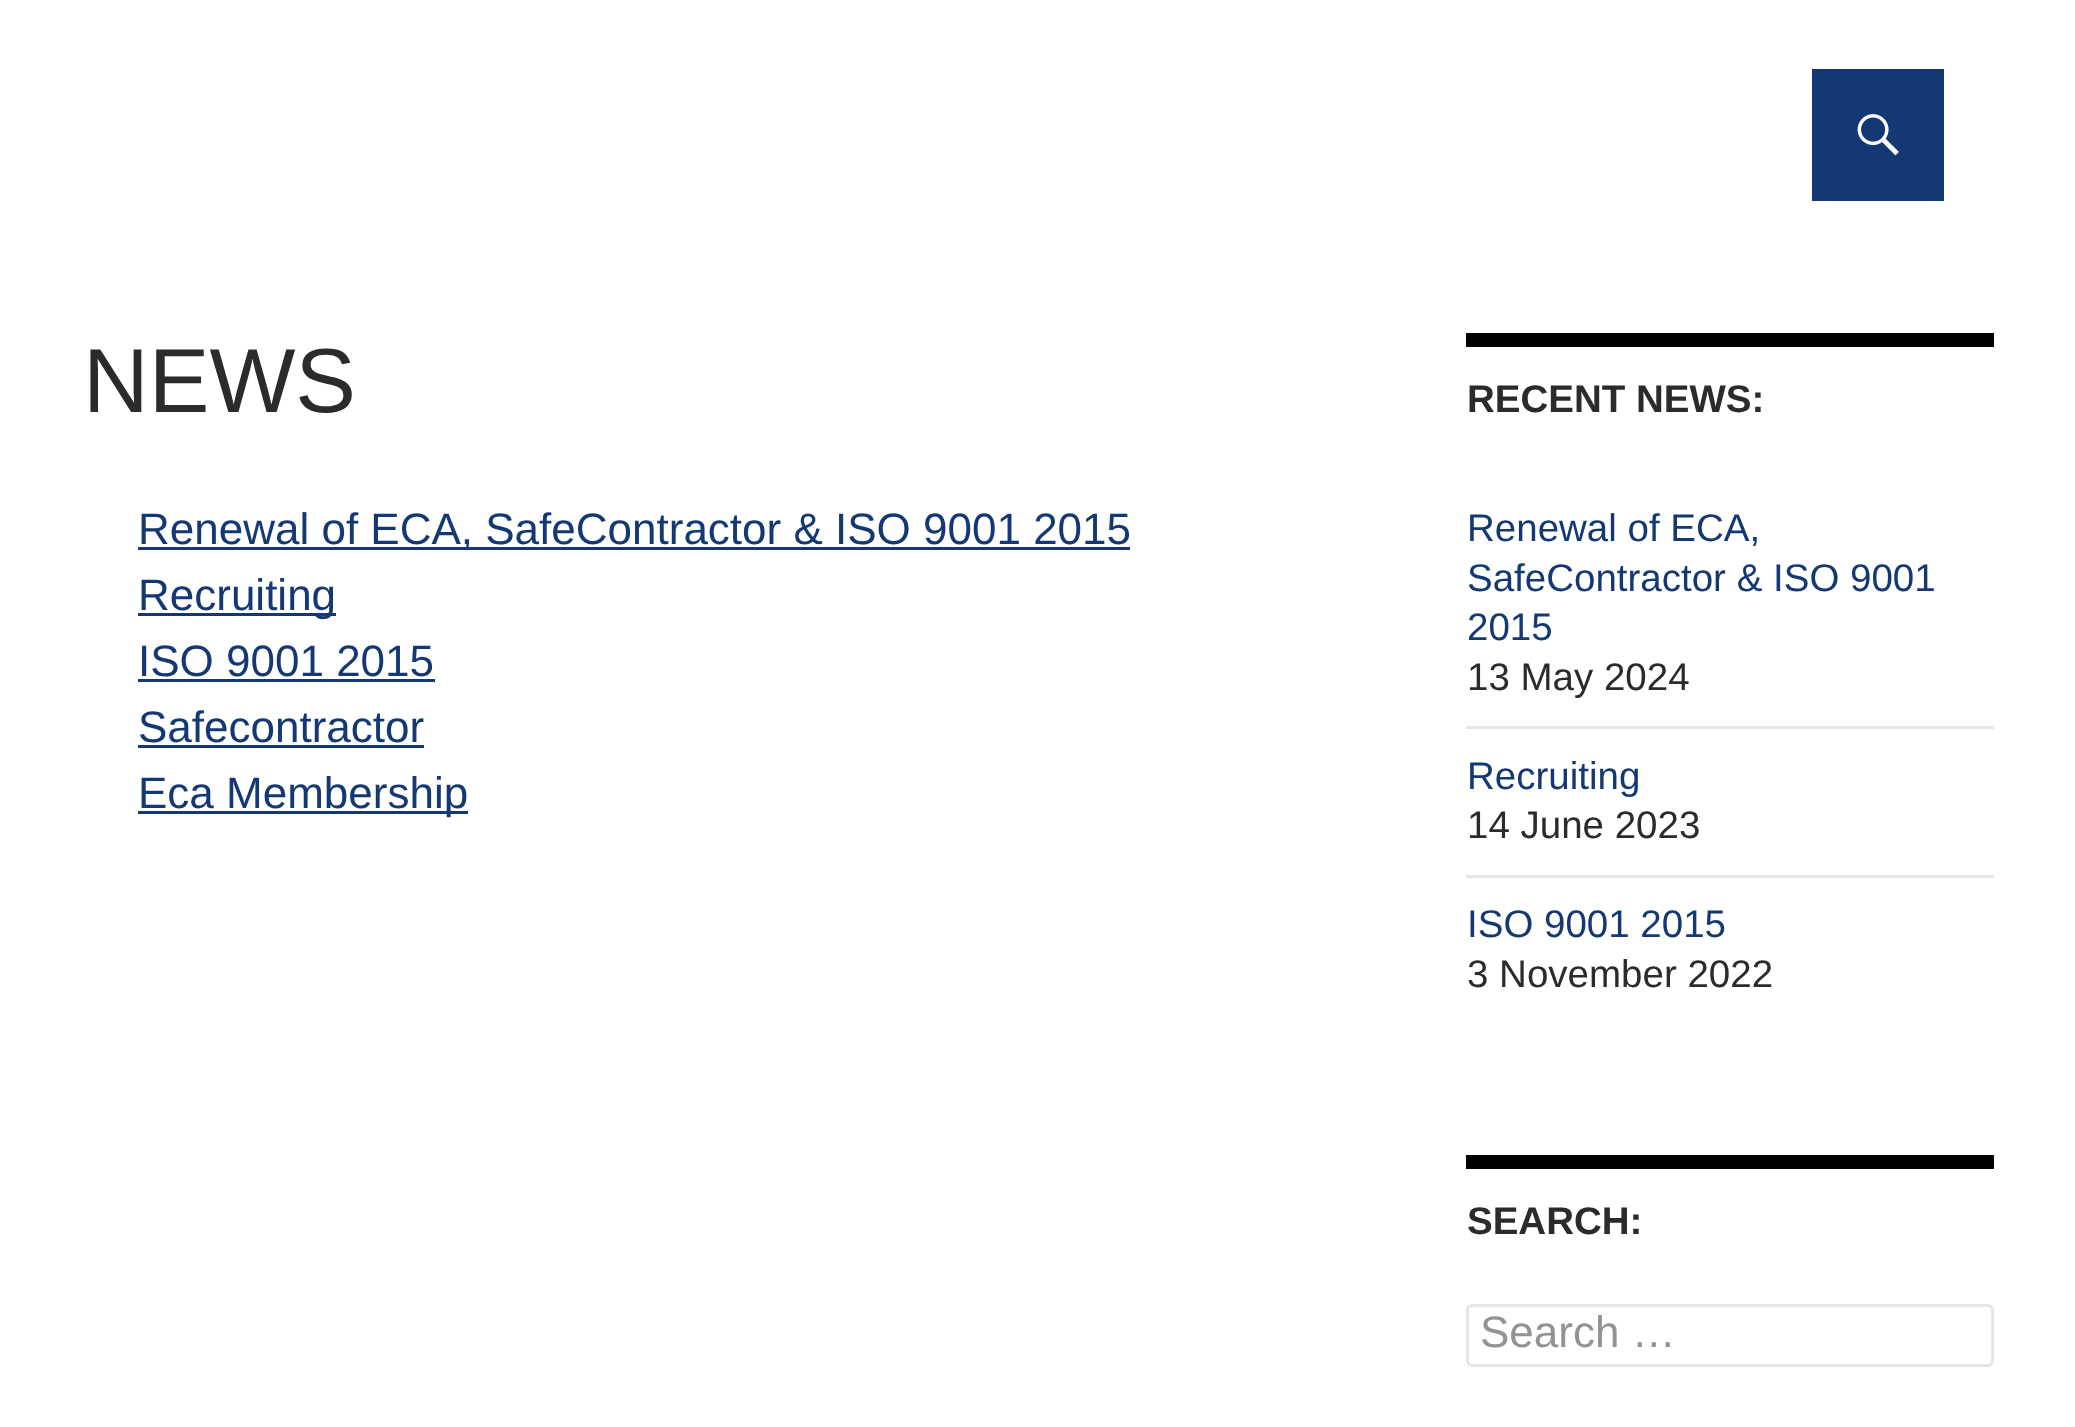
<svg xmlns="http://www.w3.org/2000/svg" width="2075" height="1427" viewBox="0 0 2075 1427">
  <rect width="100%" height="100%" fill="#ffffff"/>
  <rect x="1812" y="69" width="132" height="132" fill="#133874"/>
  <image x="1857" y="114" width="42" height="42" href="img1.png"/>
  <text x="83" y="412" font-family="Liberation Sans" font-size="91" fill="#2b2b2b">NEWS</text>
  <rect x="138" y="547" width="992" height="3" fill="#133874"/>
  <text x="138" y="544" font-family="Liberation Sans" font-size="44" fill="#133874">Renewal of ECA, SafeContractor &amp; ISO 9001 2015</text>
  <rect x="138" y="613" width="198" height="3" fill="#133874"/>
  <text x="138" y="610" font-family="Liberation Sans" font-size="44" fill="#133874">Recruiting</text>
  <text x="138" y="676" font-family="Liberation Sans" font-size="44" fill="#133874">ISO 9001 2015</text>
  <rect x="138" y="679" width="297" height="3" fill="#133874"/>
  <text x="138" y="742" font-family="Liberation Sans" font-size="44" fill="#133874">Safecontractor</text>
  <rect x="138" y="745" width="286" height="3" fill="#133874"/>
  <rect x="138" y="811" width="330" height="3" fill="#133874"/>
  <text x="138" y="808" font-family="Liberation Sans" font-size="44" fill="#133874">Eca Membership</text>
  <rect x="1466" y="333" width="528" height="14" fill="#000000"/>
  <text x="1467" y="412" font-family="Liberation Sans" font-size="38.5" font-weight="bold" fill="#2b2b2b">RECENT NEWS:</text>
  <text x="1467" y="541" font-family="Liberation Sans" font-size="38.5" fill="#133874">Renewal of ECA,</text>
  <text x="1467" y="591" font-family="Liberation Sans" font-size="38.5" fill="#133874">SafeContractor &amp; ISO 9001</text>
  <text x="1467" y="640" font-family="Liberation Sans" font-size="38.5" fill="#133874">2015</text>
  <text x="1467" y="690" font-family="Liberation Sans" font-size="38.5" fill="#2b2b2b">13 May 2024</text>
  <rect x="1466" y="726" width="528" height="3" fill="#e6e6e6"/>
  <text x="1467" y="789" font-family="Liberation Sans" font-size="38.5" fill="#133874">Recruiting</text>
  <text x="1467" y="838" font-family="Liberation Sans" font-size="38.5" fill="#2b2b2b">14 June 2023</text>
  <rect x="1466" y="875" width="528" height="3" fill="#e6e6e6"/>
  <text x="1467" y="937" font-family="Liberation Sans" font-size="38.5" fill="#133874">ISO 9001 2015</text>
  <text x="1467" y="987" font-family="Liberation Sans" font-size="38.5" fill="#2b2b2b">3 November 2022</text>
  <rect x="1466" y="1155" width="528" height="14" fill="#000000"/>
  <text x="1467" y="1234" font-family="Liberation Sans" font-size="38.5" font-weight="bold" fill="#2b2b2b">SEARCH:</text>
  <rect x="1467.5" y="1305.5" width="525" height="60" rx="4.5" fill="none" stroke="#e6e6e6" stroke-width="3"/>
  <text x="1480" y="1347" font-family="Liberation Sans" font-size="44" fill="#939393">Search …</text>
</svg>
